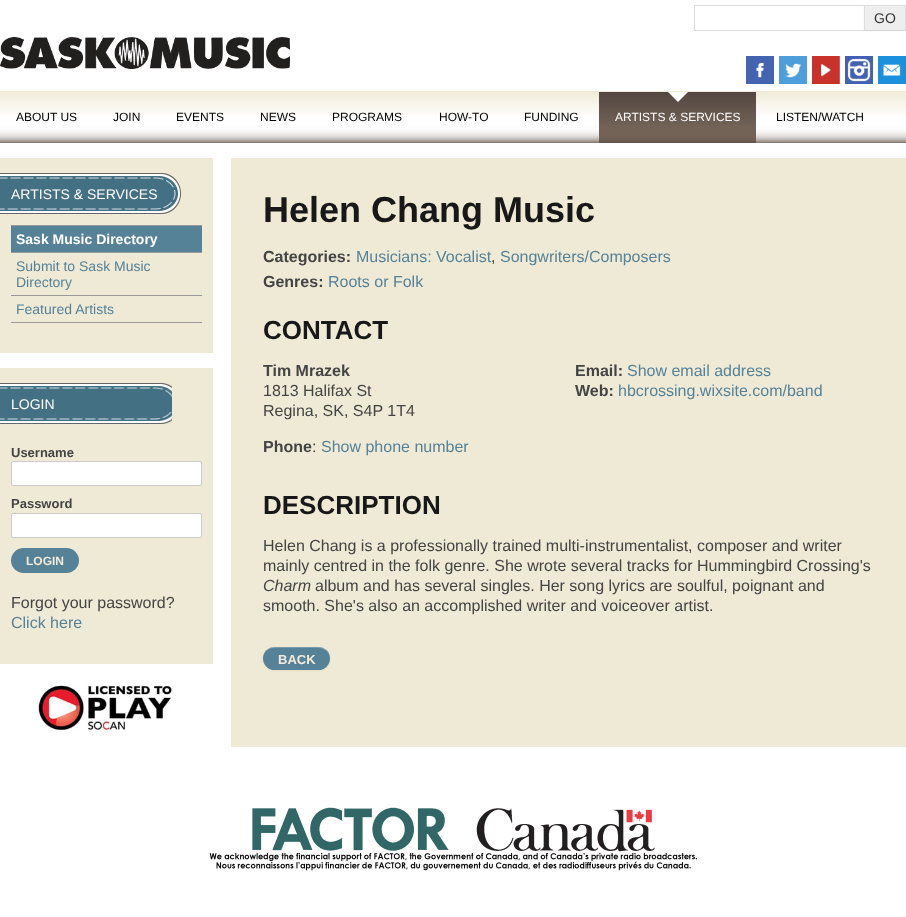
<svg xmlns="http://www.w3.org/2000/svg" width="906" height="917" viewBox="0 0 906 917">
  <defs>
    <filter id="blur1" x="-50%" y="-200%" width="200%" height="500%"><feGaussianBlur stdDeviation="1"/></filter>
  </defs>
  <rect width="100%" height="100%" fill="#ffffff"/>
  <image x="0" y="91" width="906" height="52" href="img1.png"/>
  <rect x="694.5" y="5.5" width="211" height="25" fill="none" stroke="#dddddd"/>
  <rect x="864" y="7" width="41" height="24" fill="#000000" fill-opacity="0.05" filter="url(#blur1)"/>
  <rect x="865" y="7" width="40" height="23" fill="#eeeeee"/>
  <rect x="865" y="6" width="40" height="1" fill="#f1f1f1"/>
  <rect x="864" y="6" width="1" height="24" fill="#dddddd"/>
  <text x="874" y="23" font-family="Liberation Sans" font-size="14" fill="#333333">GO</text>
  <image x="746" y="56" width="28" height="28" href="img2.png"/>
  <image x="779" y="56" width="28" height="28" href="img3.png"/>
  <image x="812" y="56" width="28" height="28" href="img4.png"/>
  <image x="845" y="56" width="28" height="28" href="img5.png"/>
  <image x="878" y="56" width="28" height="28" href="img6.png"/>
  <image x="0" y="37" width="290" height="32" href="img7.png"/>
  <text x="16" y="121" font-family="Liberation Sans" font-size="12" fill="#000000">ABOUT US</text>
  <text x="113" y="121" font-family="Liberation Sans" font-size="12" fill="#000000">JOIN</text>
  <text x="176" y="121" font-family="Liberation Sans" font-size="12" fill="#000000">EVENTS</text>
  <text x="260" y="121" font-family="Liberation Sans" font-size="12" fill="#000000">NEWS</text>
  <text x="332" y="121" font-family="Liberation Sans" font-size="12" fill="#000000">PROGRAMS</text>
  <text x="439" y="121" font-family="Liberation Sans" font-size="12" fill="#000000">HOW-TO</text>
  <text x="524" y="121" font-family="Liberation Sans" font-size="12" fill="#000000">FUNDING</text>
  <image x="599" y="92" width="157" height="51" href="img8.png"/>
  <path d="M668 92H688L678 102Z" fill="#ffffff"/>
  <text x="615" y="121" font-family="Liberation Sans" font-size="12" fill="#ffffff">ARTISTS &amp; SERVICES</text>
  <text x="776" y="121" font-family="Liberation Sans" font-size="12" fill="#000000">LISTEN/WATCH</text>
  <rect x="0" y="158" width="213" height="195" fill="#efead5"/>
  <image x="0" y="173" width="181" height="41" href="img9.png"/>
  <text x="11" y="199" font-family="Liberation Sans" font-size="14" fill="#ffffff">ARTISTS &amp; SERVICES</text>
  <rect x="11" y="225" width="191" height="1" fill="#999999"/>
  <rect x="11" y="252" width="191" height="1" fill="#999999"/>
  <rect x="11" y="226" width="191" height="26" fill="#568298"/>
  <text x="16" y="244" font-family="Liberation Sans" font-size="14" font-weight="bold" fill="#ffffff">Sask Music Directory</text>
  <rect x="11" y="295" width="191" height="1" fill="#999999"/>
  <text x="16" y="271" font-family="Liberation Sans" font-size="14" fill="#568298">Submit to Sask Music</text>
  <text x="16" y="287" font-family="Liberation Sans" font-size="14" fill="#568298">Directory</text>
  <rect x="11" y="322" width="191" height="1" fill="#999999"/>
  <text x="16" y="314" font-family="Liberation Sans" font-size="14" fill="#568298">Featured Artists</text>
  <rect x="0" y="368" width="213" height="296" fill="#efead5"/>
  <image x="0" y="383" width="172" height="41" href="img10.png"/>
  <text x="11" y="409" font-family="Liberation Sans" font-size="14" fill="#ffffff">LOGIN</text>
  <text x="11" y="457" font-family="Liberation Sans" font-size="13" font-weight="bold" fill="#444444">Username</text>
  <rect x="11.5" y="461.5" width="190" height="24" rx="1.5" fill="#ffffff" stroke="#cccccc"/>
  <text x="11" y="508" font-family="Liberation Sans" font-size="13" font-weight="bold" fill="#444444">Password</text>
  <rect x="11.5" y="513.5" width="190" height="24" rx="1.5" fill="#ffffff" stroke="#cccccc"/>
  <rect x="11" y="548" width="68" height="25" rx="12.5" fill="#568298"/>
  <text x="26" y="565" font-family="Liberation Sans" font-size="12" font-weight="bold" fill="#f2eada">LOGIN</text>
  <text x="11" y="608" font-family="Liberation Sans" font-size="16" fill="#444444">Forgot your password?</text>
  <text x="11" y="628" font-family="Liberation Sans" font-size="16" fill="#568298">Click here</text>
  <image x="38" y="684" width="136" height="48" href="img11.png"/>
  <rect x="231" y="158" width="675" height="589" fill="#efead5"/>
  <text x="263" y="222" font-family="Liberation Sans" font-size="36" font-weight="bold" fill="#181818">Helen Chang Music</text>
  <text x="263" y="262" font-family="Liberation Sans" font-size="16" font-weight="bold" fill="#444444">Categories:</text>
  <text x="356" y="262" font-family="Liberation Sans" font-size="16" fill="#568298">Musicians: Vocalist</text>
  <text x="491" y="262" font-family="Liberation Sans" font-size="16" fill="#444444">,</text>
  <text x="500" y="262" font-family="Liberation Sans" font-size="16" fill="#568298">Songwriters/Composers</text>
  <text x="263" y="287" font-family="Liberation Sans" font-size="16" font-weight="bold" fill="#444444">Genres:</text>
  <text x="328" y="287" font-family="Liberation Sans" font-size="16" fill="#568298">Roots or Folk</text>
  <text x="263" y="339" font-family="Liberation Sans" font-size="26" font-weight="bold" fill="#181818">CONTACT</text>
  <text x="263" y="376" font-family="Liberation Sans" font-size="16" font-weight="bold" fill="#444444">Tim Mrazek</text>
  <text x="263" y="396" font-family="Liberation Sans" font-size="16" fill="#444444">1813 Halifax St</text>
  <text x="263" y="416" font-family="Liberation Sans" font-size="16" fill="#444444">Regina, SK, S4P 1T4</text>
  <text x="263" y="452" font-family="Liberation Sans" font-size="16" font-weight="bold" fill="#444444">Phone</text>
  <text x="312" y="452" font-family="Liberation Sans" font-size="16" fill="#444444">:</text>
  <text x="321" y="452" font-family="Liberation Sans" font-size="16" fill="#568298">Show phone number</text>
  <text x="575" y="376" font-family="Liberation Sans" font-size="16" font-weight="bold" fill="#444444">Email:</text>
  <text x="627" y="376" font-family="Liberation Sans" font-size="16" fill="#568298">Show email address</text>
  <text x="575" y="396" font-family="Liberation Sans" font-size="16" font-weight="bold" fill="#444444">Web:</text>
  <text x="618" y="396" font-family="Liberation Sans" font-size="16" fill="#568298">hbcrossing.wixsite.com/band</text>
  <text x="263" y="514" font-family="Liberation Sans" font-size="26" font-weight="bold" fill="#181818">DESCRIPTION</text>
  <text x="263" y="551" font-family="Liberation Sans" font-size="16" fill="#444444">Helen Chang is a professionally trained multi-instrumentalist, composer and writer</text>
  <text x="263" y="571" font-family="Liberation Sans" font-size="16" fill="#444444">mainly centred in the folk genre. She wrote several tracks for Hummingbird Crossing's</text>
  <text x="263" y="591" font-family="Liberation Sans" font-size="16" font-style="italic" fill="#444444">Charm</text>
  <text x="315" y="591" font-family="Liberation Sans" font-size="16" fill="#444444">album and has several singles. Her song lyrics are soulful, poignant and</text>
  <text x="263" y="611" font-family="Liberation Sans" font-size="16" fill="#444444">smooth. She's also an accomplished writer and voiceover artist.</text>
  <rect x="263" y="648" width="67" height="23" rx="11.5" fill="#000000" fill-opacity="0.05" filter="url(#blur1)"/>
  <rect x="263" y="647" width="67" height="23" rx="11.5" fill="#568298"/>
  <path d="M274 648H318C325 648 330 653 330 659C330 654 326 648 321 647H272C267 648 263 654 263 659C263 653 268 648 274 648Z" fill="#ffffff" fill-opacity="0.2"/>
  <text x="278" y="664" font-family="Liberation Sans" font-size="13" font-weight="bold" fill="#f2eada">BACK</text>
  <image x="209" y="807" width="488" height="64" href="img12.png"/>
</svg>
